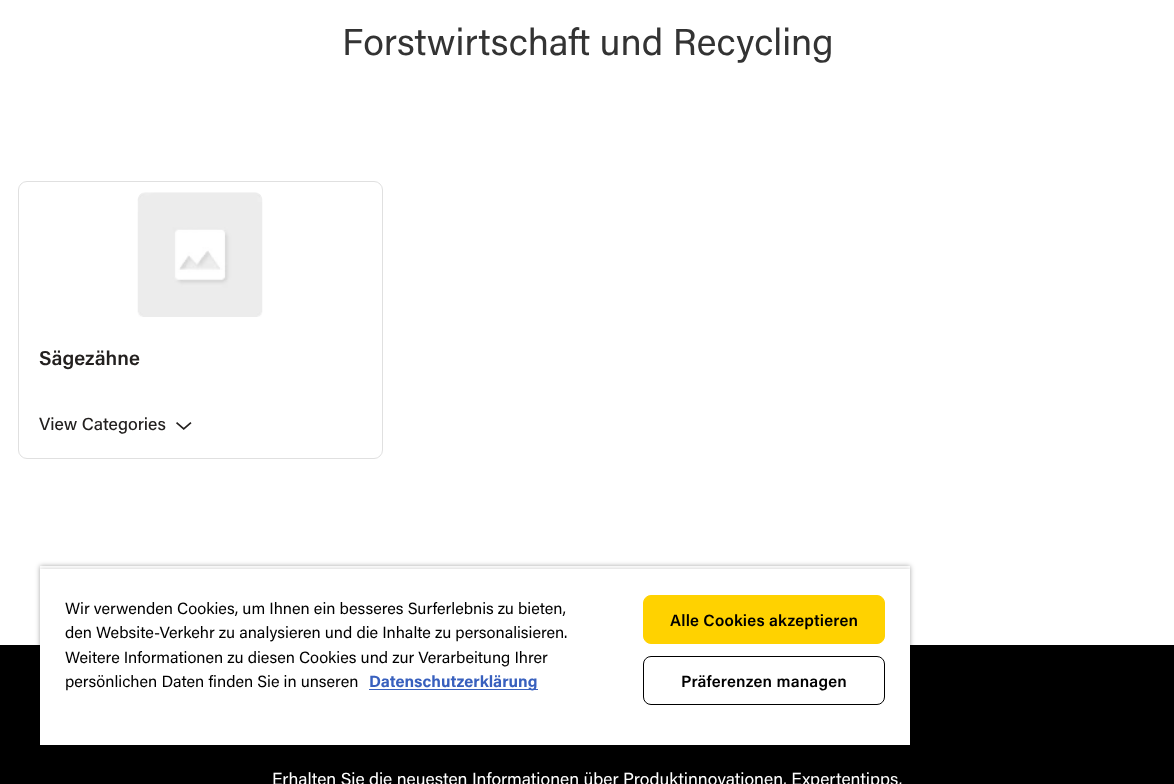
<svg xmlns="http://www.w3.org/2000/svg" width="1174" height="784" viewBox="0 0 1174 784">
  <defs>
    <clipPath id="clip1"><path d="M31 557H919V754H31ZM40 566H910V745H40Z" clip-rule="evenodd"/></clipPath>
    <filter id="blur1" x="-50%" y="-200%" width="200%" height="500%"><feGaussianBlur stdDeviation="2.5"/></filter>
    <clipPath id="clip2"><rect x="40" y="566" width="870" height="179"/></clipPath>
  </defs>
  <rect width="100%" height="100%" fill="#ffffff"/>
  <text x="342" y="55" font-family="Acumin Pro" font-size="37.5" fill="#333333">Forstwirtschaft und Recycling</text>
  <rect x="18.5" y="181.5" width="364" height="277" rx="8.5" fill="none" stroke="#e0e0e0"/>
  <image x="137" y="192" width="126" height="125" href="img1.png"/>
  <text x="39" y="365" font-family="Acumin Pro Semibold" font-size="20" font-weight="600" fill="#23201f">Sägezähne</text>
  <text x="39" y="430" font-family="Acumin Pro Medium" font-size="17.5" font-weight="500" fill="#23201f">View Categories</text>
  <image x="176" y="422" width="16" height="8" href="img2.png"/>
  <rect x="0" y="645" width="1174" height="139" fill="#000000"/>
  <text x="272" y="785" font-family="Acumin Pro" font-size="17.5" fill="#ffffff">Erhalten Sie die neuesten Informationen über Produktinnovationen, Expertentipps,</text>
  <g clip-path="url(#clip1)">
    <rect x="40" y="566" width="870" height="179" fill="#000000" fill-opacity="0.35" filter="url(#blur1)"/>
  </g>
  <g clip-path="url(#clip2)">
    <rect x="40" y="569" width="870" height="176" fill="#000000" fill-opacity="0.2" filter="url(#blur1)"/>
  </g>
  <rect x="40" y="569" width="870" height="176" fill="#ffffff"/>
  <text x="65" y="614" font-family="Acumin Pro" font-size="16.25" fill="#000000">Wir verwenden Cookies, um Ihnen ein besseres Surferlebnis zu bieten,</text>
  <text x="65" y="638" font-family="Acumin Pro" font-size="16.25" fill="#000000">den Website-Verkehr zu analysieren und die Inhalte zu personalisieren.</text>
  <text x="65" y="663" font-family="Acumin Pro" font-size="16.25" fill="#000000">Weitere Informationen zu diesen Cookies und zur Verarbeitung Ihrer</text>
  <text x="65" y="687" font-family="Acumin Pro" font-size="16.25" fill="#000000">persönlichen Daten finden Sie in unseren</text>
  <rect x="369" y="689" width="169" height="1" fill="#3860be"/>
  <text x="369" y="687" font-family="Acumin Pro" font-size="16.25" font-weight="bold" fill="#3860be">Datenschutzerklärung</text>
  <rect x="643.5" y="595.5" width="241" height="48" rx="7.5" fill="#ffd200" stroke="#ffd200"/>
  <text x="670" y="626" font-family="Acumin Pro Semibold" font-size="16.25" font-weight="600" letter-spacing="0.2" fill="#000000">Alle Cookies akzeptieren</text>
  <rect x="643.5" y="656.5" width="241" height="48" rx="7.5" fill="none" stroke="#000000"/>
  <text x="681" y="687" font-family="Acumin Pro Semibold" font-size="16.25" font-weight="600" letter-spacing="0.2" fill="#000000">Präferenzen managen</text>
</svg>
